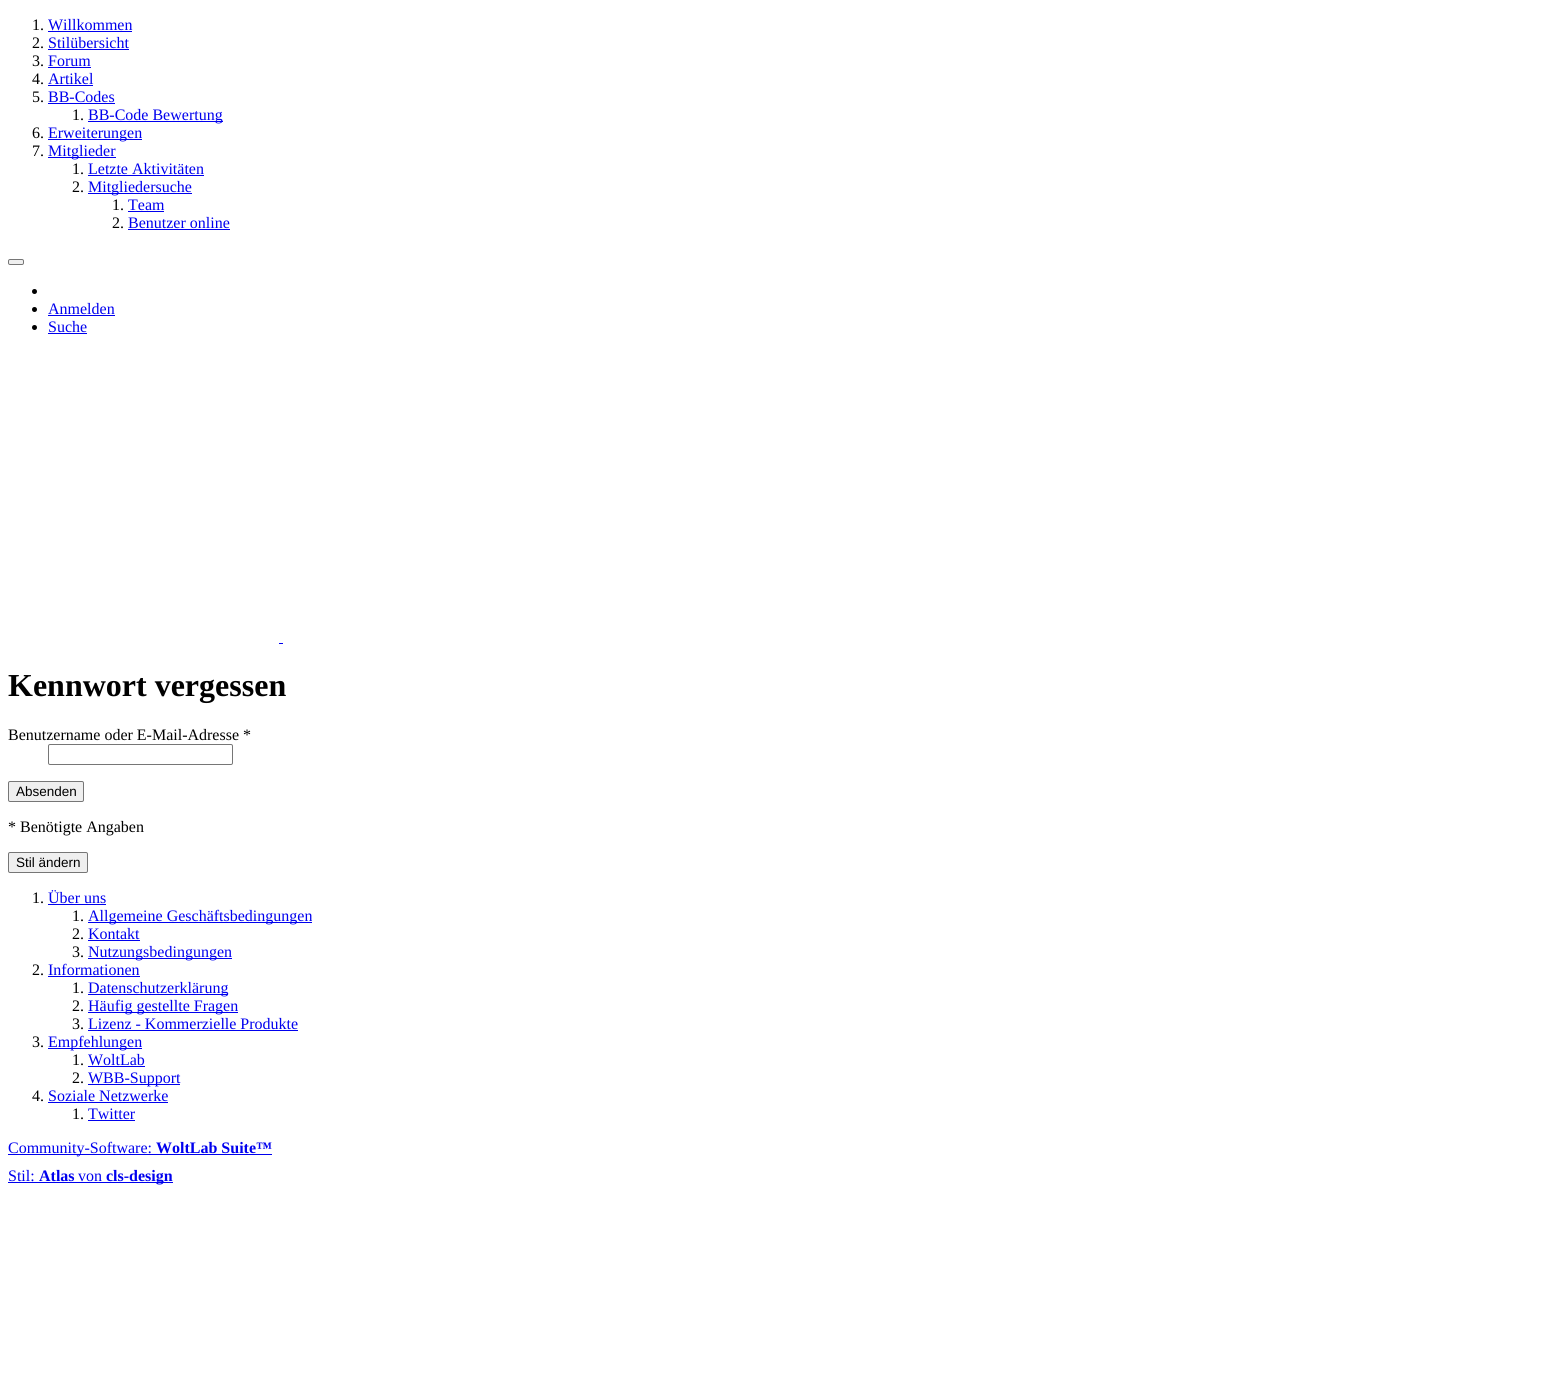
#include <cairo/cairo.h>
#include <math.h>
#include <stddef.h>


static void rounded_rect(cairo_t *cr, double x, double y, double w, double h, double r) {
  cairo_new_sub_path(cr);
  cairo_arc(cr, x + w - r, y + h - r, r, 0, M_PI / 2);
  cairo_arc(cr, x + r, y + h - r, r, M_PI / 2, M_PI);
  cairo_arc(cr, x + r, y + r, r, M_PI, 1.5 * M_PI);
  cairo_arc(cr, x + w - r, y + r, r, 1.5 * M_PI, 2 * M_PI);
  cairo_close_path(cr);
}

static void draw(cairo_t *cr) {
  cairo_set_source_rgb(cr, 1, 1, 1);
  cairo_paint(cr);
  cairo_set_source_rgb(cr, 0, 0, 238 / 255.0);
  cairo_rectangle(cr, 48, 31, 84, 1);
  cairo_fill(cr);
  cairo_rectangle(cr, 48, 49, 81, 1);
  cairo_fill(cr);
  cairo_rectangle(cr, 48, 67, 43, 1);
  cairo_fill(cr);
  cairo_rectangle(cr, 48, 85, 45, 1);
  cairo_fill(cr);
  cairo_rectangle(cr, 48, 103, 67, 1);
  cairo_fill(cr);
  cairo_rectangle(cr, 88, 121, 135, 1);
  cairo_fill(cr);
  cairo_rectangle(cr, 48, 139, 94, 1);
  cairo_fill(cr);
  cairo_rectangle(cr, 48, 157, 68, 1);
  cairo_fill(cr);
  cairo_rectangle(cr, 88, 175, 116, 1);
  cairo_fill(cr);
  cairo_rectangle(cr, 88, 193, 104, 1);
  cairo_fill(cr);
  cairo_rectangle(cr, 128, 211, 36, 1);
  cairo_fill(cr);
  cairo_rectangle(cr, 128, 229, 102, 1);
  cairo_fill(cr);
  cairo_set_source_rgb(cr, 239 / 255.0, 239 / 255.0, 239 / 255.0);
  rounded_rect(cr, 8.5, 259.5, 15, 5, 1.5);
  cairo_fill_preserve(cr);
  cairo_set_source_rgb(cr, 118 / 255.0, 118 / 255.0, 118 / 255.0);
  cairo_set_line_width(cr, 1);
  cairo_stroke(cr);
  cairo_set_source_rgb(cr, 0, 0, 0);
  cairo_arc(cr, 34.5, 291.5, 2.5, 0, 2 * M_PI);
  cairo_fill(cr);
  cairo_arc(cr, 34.5, 309.5, 2.5, 0, 2 * M_PI);
  cairo_fill(cr);
  cairo_set_source_rgb(cr, 0, 0, 238 / 255.0);
  cairo_rectangle(cr, 48, 315, 67, 1);
  cairo_fill(cr);
  cairo_set_source_rgb(cr, 0, 0, 0);
  cairo_arc(cr, 34.5, 327.5, 2.5, 0, 2 * M_PI);
  cairo_fill(cr);
  cairo_set_source_rgb(cr, 0, 0, 238 / 255.0);
  cairo_rectangle(cr, 48, 333, 39, 1);
  cairo_fill(cr);
  cairo_rectangle(cr, 279, 643, 4, 1);
  cairo_fill(cr);
  rounded_rect(cr, 48.5, 744.5, 184, 20, 1.5);
  cairo_set_source_rgb(cr, 118 / 255.0, 118 / 255.0, 118 / 255.0);
  cairo_stroke(cr);
  cairo_set_source_rgb(cr, 239 / 255.0, 239 / 255.0, 239 / 255.0);
  rounded_rect(cr, 8.5, 781.5, 75, 20, 1.5);
  cairo_fill_preserve(cr);
  cairo_set_source_rgb(cr, 118 / 255.0, 118 / 255.0, 118 / 255.0);
  cairo_stroke(cr);
  cairo_set_source_rgb(cr, 239 / 255.0, 239 / 255.0, 239 / 255.0);
  rounded_rect(cr, 8.5, 852.5, 79, 20, 1.5);
  cairo_fill_preserve(cr);
  cairo_set_source_rgb(cr, 118 / 255.0, 118 / 255.0, 118 / 255.0);
  cairo_stroke(cr);
  cairo_set_source_rgb(cr, 0, 0, 238 / 255.0);
  cairo_rectangle(cr, 48, 904, 58, 1);
  cairo_fill(cr);
  cairo_rectangle(cr, 88, 922, 224, 1);
  cairo_fill(cr);
  cairo_rectangle(cr, 88, 940, 52, 1);
  cairo_fill(cr);
  cairo_rectangle(cr, 88, 958, 144, 1);
  cairo_fill(cr);
  cairo_rectangle(cr, 48, 976, 92, 1);
  cairo_fill(cr);
  cairo_rectangle(cr, 88, 994, 140, 1);
  cairo_fill(cr);
  cairo_rectangle(cr, 88, 1012, 150, 1);
  cairo_fill(cr);
  cairo_rectangle(cr, 88, 1030, 210, 1);
  cairo_fill(cr);
  cairo_rectangle(cr, 48, 1048, 94, 1);
  cairo_fill(cr);
  cairo_rectangle(cr, 88, 1066, 57, 1);
  cairo_fill(cr);
  cairo_rectangle(cr, 88, 1084, 92, 1);
  cairo_fill(cr);
  cairo_rectangle(cr, 48, 1102, 120, 1);
  cairo_fill(cr);
  cairo_rectangle(cr, 88, 1120, 47, 1);
  cairo_fill(cr);
  cairo_rectangle(cr, 8, 1154, 264, 1);
  cairo_fill(cr);
  cairo_rectangle(cr, 8, 1182, 165, 1);
  cairo_fill(cr);
  cairo_select_font_face(cr, "Liberation Serif", CAIRO_FONT_SLANT_NORMAL, CAIRO_FONT_WEIGHT_NORMAL);
  cairo_set_font_size(cr, 16);
  cairo_set_source_rgb(cr, 0, 0, 0);
  cairo_move_to(cr, 32, 30);
  cairo_show_text(cr, "1.");
  cairo_set_source_rgb(cr, 0, 0, 238 / 255.0);
  cairo_move_to(cr, 48, 30);
  cairo_show_text(cr, "Willkommen");
  cairo_set_source_rgb(cr, 0, 0, 0);
  cairo_move_to(cr, 32, 48);
  cairo_show_text(cr, "2.");
  cairo_set_source_rgb(cr, 0, 0, 238 / 255.0);
  cairo_move_to(cr, 48, 48);
  cairo_show_text(cr, "Stilübersicht");
  cairo_set_source_rgb(cr, 0, 0, 0);
  cairo_move_to(cr, 32, 66);
  cairo_show_text(cr, "3.");
  cairo_set_source_rgb(cr, 0, 0, 238 / 255.0);
  cairo_move_to(cr, 48, 66);
  cairo_show_text(cr, "Forum");
  cairo_set_source_rgb(cr, 0, 0, 0);
  cairo_move_to(cr, 32, 84);
  cairo_show_text(cr, "4.");
  cairo_set_source_rgb(cr, 0, 0, 238 / 255.0);
  cairo_move_to(cr, 48, 84);
  cairo_show_text(cr, "Artikel");
  cairo_set_source_rgb(cr, 0, 0, 0);
  cairo_move_to(cr, 32, 102);
  cairo_show_text(cr, "5.");
  cairo_set_source_rgb(cr, 0, 0, 238 / 255.0);
  cairo_move_to(cr, 48, 102);
  cairo_show_text(cr, "BB-Codes");
  cairo_set_source_rgb(cr, 0, 0, 0);
  cairo_move_to(cr, 72, 120);
  cairo_show_text(cr, "1.");
  cairo_set_source_rgb(cr, 0, 0, 238 / 255.0);
  cairo_move_to(cr, 88, 120);
  cairo_show_text(cr, "BB-Code Bewertung");
  cairo_set_source_rgb(cr, 0, 0, 0);
  cairo_move_to(cr, 32, 138);
  cairo_show_text(cr, "6.");
  cairo_set_source_rgb(cr, 0, 0, 238 / 255.0);
  cairo_move_to(cr, 48, 138);
  cairo_show_text(cr, "Erweiterungen");
  cairo_set_source_rgb(cr, 0, 0, 0);
  cairo_move_to(cr, 32, 156);
  cairo_show_text(cr, "7.");
  cairo_set_source_rgb(cr, 0, 0, 238 / 255.0);
  cairo_move_to(cr, 48, 156);
  cairo_show_text(cr, "Mitglieder");
  cairo_set_source_rgb(cr, 0, 0, 0);
  cairo_move_to(cr, 72, 174);
  cairo_show_text(cr, "1.");
  cairo_set_source_rgb(cr, 0, 0, 238 / 255.0);
  cairo_move_to(cr, 88, 174);
  cairo_show_text(cr, "Letzte Aktivitäten");
  cairo_set_source_rgb(cr, 0, 0, 0);
  cairo_move_to(cr, 72, 192);
  cairo_show_text(cr, "2.");
  cairo_set_source_rgb(cr, 0, 0, 238 / 255.0);
  cairo_move_to(cr, 88, 192);
  cairo_show_text(cr, "Mitgliedersuche");
  cairo_set_source_rgb(cr, 0, 0, 0);
  cairo_move_to(cr, 112, 210);
  cairo_show_text(cr, "1.");
  cairo_set_source_rgb(cr, 0, 0, 238 / 255.0);
  cairo_move_to(cr, 128, 210);
  cairo_show_text(cr, "Team");
  cairo_set_source_rgb(cr, 0, 0, 0);
  cairo_move_to(cr, 112, 228);
  cairo_show_text(cr, "2.");
  cairo_set_source_rgb(cr, 0, 0, 238 / 255.0);
  cairo_move_to(cr, 128, 228);
  cairo_show_text(cr, "Benutzer online");
  cairo_move_to(cr, 48, 314);
  cairo_show_text(cr, "Anmelden");
  cairo_move_to(cr, 48, 332);
  cairo_show_text(cr, "Suche");
  cairo_select_font_face(cr, "Liberation Serif", CAIRO_FONT_SLANT_NORMAL, CAIRO_FONT_WEIGHT_BOLD);
  cairo_set_font_size(cr, 32);
  cairo_set_source_rgb(cr, 0, 0, 0);
  cairo_move_to(cr, 8, 696);
  cairo_show_text(cr, "Kennwort vergessen");
  cairo_select_font_face(cr, "Liberation Serif", CAIRO_FONT_SLANT_NORMAL, CAIRO_FONT_WEIGHT_NORMAL);
  cairo_set_font_size(cr, 16);
  cairo_move_to(cr, 8, 740);
  cairo_show_text(cr, "Benutzername oder E-Mail-Adresse *");
  cairo_select_font_face(cr, "Liberation Sans", CAIRO_FONT_SLANT_NORMAL, CAIRO_FONT_WEIGHT_NORMAL);
  cairo_set_font_size(cr, 13.5);
  cairo_move_to(cr, 16, 796);
  cairo_show_text(cr, "Absenden");
  cairo_select_font_face(cr, "Liberation Serif", CAIRO_FONT_SLANT_NORMAL, CAIRO_FONT_WEIGHT_NORMAL);
  cairo_set_font_size(cr, 16);
  cairo_move_to(cr, 8, 832);
  cairo_show_text(cr, "* Benötigte Angaben");
  cairo_select_font_face(cr, "Liberation Sans", CAIRO_FONT_SLANT_NORMAL, CAIRO_FONT_WEIGHT_NORMAL);
  cairo_set_font_size(cr, 13.5);
  cairo_move_to(cr, 16, 867);
  cairo_show_text(cr, "Stil ändern");
  cairo_select_font_face(cr, "Liberation Serif", CAIRO_FONT_SLANT_NORMAL, CAIRO_FONT_WEIGHT_NORMAL);
  cairo_set_font_size(cr, 16);
  cairo_move_to(cr, 32, 903);
  cairo_show_text(cr, "1.");
  cairo_set_source_rgb(cr, 0, 0, 238 / 255.0);
  cairo_move_to(cr, 48, 903);
  cairo_show_text(cr, "Über uns");
  cairo_set_source_rgb(cr, 0, 0, 0);
  cairo_move_to(cr, 72, 921);
  cairo_show_text(cr, "1.");
  cairo_set_source_rgb(cr, 0, 0, 238 / 255.0);
  cairo_move_to(cr, 88, 921);
  cairo_show_text(cr, "Allgemeine Geschäftsbedingungen");
  cairo_set_source_rgb(cr, 0, 0, 0);
  cairo_move_to(cr, 72, 939);
  cairo_show_text(cr, "2.");
  cairo_set_source_rgb(cr, 0, 0, 238 / 255.0);
  cairo_move_to(cr, 88, 939);
  cairo_show_text(cr, "Kontakt");
  cairo_set_source_rgb(cr, 0, 0, 0);
  cairo_move_to(cr, 72, 957);
  cairo_show_text(cr, "3.");
  cairo_set_source_rgb(cr, 0, 0, 238 / 255.0);
  cairo_move_to(cr, 88, 957);
  cairo_show_text(cr, "Nutzungsbedingungen");
  cairo_set_source_rgb(cr, 0, 0, 0);
  cairo_move_to(cr, 32, 975);
  cairo_show_text(cr, "2.");
  cairo_set_source_rgb(cr, 0, 0, 238 / 255.0);
  cairo_move_to(cr, 48, 975);
  cairo_show_text(cr, "Informationen");
  cairo_set_source_rgb(cr, 0, 0, 0);
  cairo_move_to(cr, 72, 993);
  cairo_show_text(cr, "1.");
  cairo_set_source_rgb(cr, 0, 0, 238 / 255.0);
  cairo_move_to(cr, 88, 993);
  cairo_show_text(cr, "Datenschutzerklärung");
  cairo_set_source_rgb(cr, 0, 0, 0);
  cairo_move_to(cr, 72, 1011);
  cairo_show_text(cr, "2.");
  cairo_set_source_rgb(cr, 0, 0, 238 / 255.0);
  cairo_move_to(cr, 88, 1011);
  cairo_show_text(cr, "Häufig gestellte Fragen");
  cairo_set_source_rgb(cr, 0, 0, 0);
  cairo_move_to(cr, 72, 1029);
  cairo_show_text(cr, "3.");
  cairo_set_source_rgb(cr, 0, 0, 238 / 255.0);
  cairo_move_to(cr, 88, 1029);
  cairo_show_text(cr, "Lizenz - Kommerzielle Produkte");
  cairo_set_source_rgb(cr, 0, 0, 0);
  cairo_move_to(cr, 32, 1047);
  cairo_show_text(cr, "3.");
  cairo_set_source_rgb(cr, 0, 0, 238 / 255.0);
  cairo_move_to(cr, 48, 1047);
  cairo_show_text(cr, "Empfehlungen");
  cairo_set_source_rgb(cr, 0, 0, 0);
  cairo_move_to(cr, 72, 1065);
  cairo_show_text(cr, "1.");
  cairo_set_source_rgb(cr, 0, 0, 238 / 255.0);
  cairo_move_to(cr, 88, 1065);
  cairo_show_text(cr, "WoltLab");
  cairo_set_source_rgb(cr, 0, 0, 0);
  cairo_move_to(cr, 72, 1083);
  cairo_show_text(cr, "2.");
  cairo_set_source_rgb(cr, 0, 0, 238 / 255.0);
  cairo_move_to(cr, 88, 1083);
  cairo_show_text(cr, "WBB-Support");
  cairo_set_source_rgb(cr, 0, 0, 0);
  cairo_move_to(cr, 32, 1101);
  cairo_show_text(cr, "4.");
  cairo_set_source_rgb(cr, 0, 0, 238 / 255.0);
  cairo_move_to(cr, 48, 1101);
  cairo_show_text(cr, "Soziale Netzwerke");
  cairo_set_source_rgb(cr, 0, 0, 0);
  cairo_move_to(cr, 72, 1119);
  cairo_show_text(cr, "1.");
  cairo_set_source_rgb(cr, 0, 0, 238 / 255.0);
  cairo_move_to(cr, 88, 1119);
  cairo_show_text(cr, "Twitter");
  cairo_move_to(cr, 8, 1153);
  cairo_show_text(cr, "Community-Software:");
  cairo_select_font_face(cr, "Liberation Serif", CAIRO_FONT_SLANT_NORMAL, CAIRO_FONT_WEIGHT_BOLD);
  cairo_move_to(cr, 156, 1153);
  cairo_show_text(cr, "WoltLab Suite™");
  cairo_select_font_face(cr, "Liberation Serif", CAIRO_FONT_SLANT_NORMAL, CAIRO_FONT_WEIGHT_NORMAL);
  cairo_move_to(cr, 8, 1181);
  cairo_show_text(cr, "Stil:");
  cairo_select_font_face(cr, "Liberation Serif", CAIRO_FONT_SLANT_NORMAL, CAIRO_FONT_WEIGHT_BOLD);
  cairo_move_to(cr, 39, 1181);
  cairo_show_text(cr, "Atlas");
  cairo_select_font_face(cr, "Liberation Serif", CAIRO_FONT_SLANT_NORMAL, CAIRO_FONT_WEIGHT_NORMAL);
  cairo_move_to(cr, 78, 1181);
  cairo_show_text(cr, "von");
  cairo_select_font_face(cr, "Liberation Serif", CAIRO_FONT_SLANT_NORMAL, CAIRO_FONT_WEIGHT_BOLD);
  cairo_move_to(cr, 106, 1181);
  cairo_show_text(cr, "cls-design");
}

int main(void) {
  cairo_surface_t *surface = cairo_image_surface_create(CAIRO_FORMAT_RGB24, 1555, 1399);
  cairo_t *cr = cairo_create(surface);
  cairo_font_options_t *options = cairo_font_options_create();
  cairo_font_options_set_hint_metrics(options, CAIRO_HINT_METRICS_OFF);
  cairo_font_options_set_hint_style(options, CAIRO_HINT_STYLE_NONE);
  cairo_set_font_options(cr, options);
  cairo_set_miter_limit(cr, 4);
  draw(cr);
  cairo_surface_write_to_png(surface, "out.png");
  cairo_font_options_destroy(options);
  cairo_destroy(cr);
  cairo_surface_destroy(surface);
  return 0;
}
